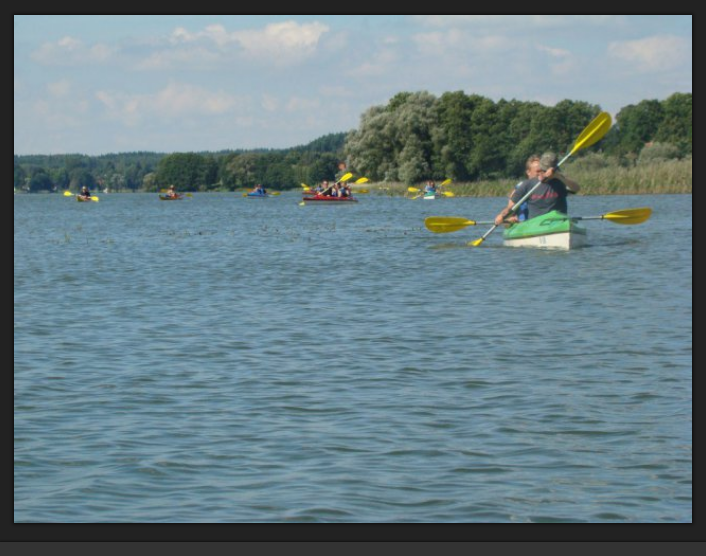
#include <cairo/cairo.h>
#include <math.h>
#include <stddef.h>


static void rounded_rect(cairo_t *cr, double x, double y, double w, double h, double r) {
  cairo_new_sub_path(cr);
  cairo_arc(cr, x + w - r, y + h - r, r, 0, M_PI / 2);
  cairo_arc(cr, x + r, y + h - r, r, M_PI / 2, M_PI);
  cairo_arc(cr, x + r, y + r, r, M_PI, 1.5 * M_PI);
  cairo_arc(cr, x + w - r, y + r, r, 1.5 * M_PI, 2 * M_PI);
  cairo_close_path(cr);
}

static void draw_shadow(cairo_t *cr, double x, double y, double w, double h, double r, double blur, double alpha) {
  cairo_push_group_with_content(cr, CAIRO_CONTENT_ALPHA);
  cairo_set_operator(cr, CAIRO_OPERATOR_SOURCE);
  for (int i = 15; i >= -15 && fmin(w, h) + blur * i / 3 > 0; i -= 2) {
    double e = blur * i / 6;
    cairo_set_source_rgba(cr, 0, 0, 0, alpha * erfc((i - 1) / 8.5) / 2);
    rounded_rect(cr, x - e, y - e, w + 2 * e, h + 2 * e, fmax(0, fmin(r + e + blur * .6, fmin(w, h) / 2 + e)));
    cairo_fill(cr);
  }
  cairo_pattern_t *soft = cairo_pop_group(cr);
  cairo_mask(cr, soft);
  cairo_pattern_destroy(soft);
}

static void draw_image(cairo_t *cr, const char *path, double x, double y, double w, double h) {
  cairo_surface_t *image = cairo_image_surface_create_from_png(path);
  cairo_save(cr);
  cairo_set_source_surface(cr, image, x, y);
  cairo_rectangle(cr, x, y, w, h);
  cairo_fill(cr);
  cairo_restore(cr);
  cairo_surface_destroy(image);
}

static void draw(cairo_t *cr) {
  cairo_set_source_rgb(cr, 34 / 255.0, 34 / 255.0, 34 / 255.0);
  cairo_paint(cr);
  cairo_set_source_rgb(cr, 0, 0, 0);
  draw_shadow(cr, 14, 15, 678, 508, 0, 2.5, 1);
  draw_image(cr, "images/1.png", 14, 15, 678, 508);
  draw_shadow(cr, 0, 542, 706, 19, 0, 1.5, 1);
  cairo_set_source_rgb(cr, 51 / 255.0, 51 / 255.0, 51 / 255.0);
  cairo_rectangle(cr, 0, 542, 706, 14);
  cairo_fill(cr);
}

int main(void) {
  cairo_surface_t *surface = cairo_image_surface_create(CAIRO_FORMAT_RGB24, 706, 556);
  cairo_t *cr = cairo_create(surface);
  cairo_font_options_t *options = cairo_font_options_create();
  cairo_font_options_set_hint_metrics(options, CAIRO_HINT_METRICS_OFF);
  cairo_font_options_set_hint_style(options, CAIRO_HINT_STYLE_NONE);
  cairo_set_font_options(cr, options);
  cairo_set_miter_limit(cr, 4);
  draw(cr);
  cairo_surface_write_to_png(surface, "out.png");
  cairo_font_options_destroy(options);
  cairo_destroy(cr);
  cairo_surface_destroy(surface);
  return 0;
}
